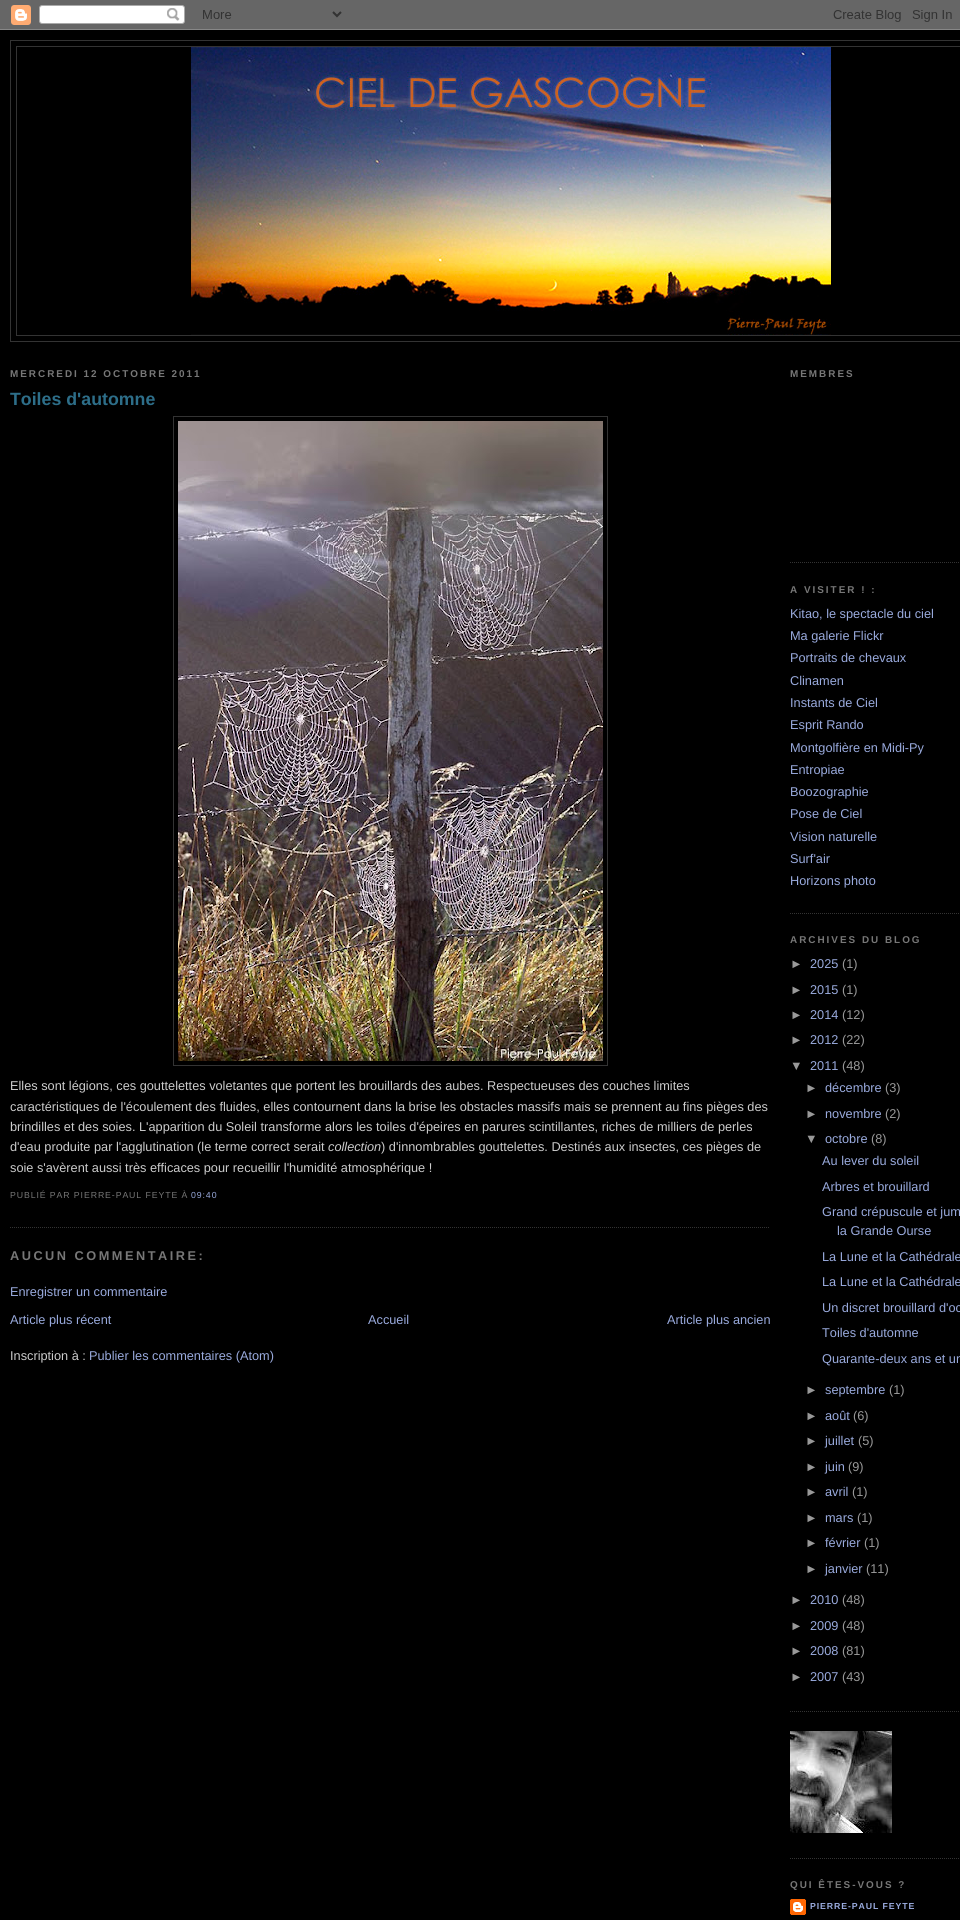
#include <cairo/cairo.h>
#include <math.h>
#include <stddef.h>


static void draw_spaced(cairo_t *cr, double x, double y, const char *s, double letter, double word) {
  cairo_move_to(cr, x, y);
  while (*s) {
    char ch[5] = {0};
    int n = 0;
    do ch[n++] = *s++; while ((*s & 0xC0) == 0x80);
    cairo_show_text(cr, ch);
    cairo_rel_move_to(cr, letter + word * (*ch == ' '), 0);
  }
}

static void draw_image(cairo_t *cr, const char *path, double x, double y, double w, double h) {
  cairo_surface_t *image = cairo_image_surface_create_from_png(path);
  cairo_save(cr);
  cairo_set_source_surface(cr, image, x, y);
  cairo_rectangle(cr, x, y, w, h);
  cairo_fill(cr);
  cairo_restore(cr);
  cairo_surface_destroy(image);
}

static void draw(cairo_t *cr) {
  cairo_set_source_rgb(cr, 0, 0, 0);
  cairo_paint(cr);
  draw_image(cr, "images/1.png", 0, 0, 960, 30);
  cairo_rectangle(cr, 10.5, 40.5, 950, 301);
  cairo_set_source_rgb(cr, 51 / 255.0, 51 / 255.0, 51 / 255.0);
  cairo_set_line_width(cr, 1);
  cairo_stroke(cr);
  cairo_rectangle(cr, 16.5, 46.5, 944, 289);
  cairo_stroke(cr);
  draw_image(cr, "images/2.png", 191, 47, 640, 288);
  cairo_new_path(cr);
  cairo_move_to(cr, 10, 1227.5);
  cairo_line_to(cr, 770, 1227.5);
  cairo_set_dash(cr, (double[]){1, 1}, 2, 0);
  cairo_stroke(cr);
  cairo_rectangle(cr, 173.5, 416.5, 434, 649);
  cairo_set_dash(cr, NULL, 0, 0);
  cairo_stroke(cr);
  draw_image(cr, "images/3.png", 178, 421, 425, 640);
  cairo_new_path(cr);
  cairo_move_to(cr, 790, 562.5);
  cairo_line_to(cr, 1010, 562.5);
  cairo_set_dash(cr, (double[]){1, 1}, 2, 0);
  cairo_stroke(cr);
  cairo_new_path(cr);
  cairo_move_to(cr, 790, 913.5);
  cairo_line_to(cr, 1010, 913.5);
  cairo_stroke(cr);
  cairo_new_path(cr);
  cairo_move_to(cr, 790, 1711.5);
  cairo_line_to(cr, 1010, 1711.5);
  cairo_stroke(cr);
  cairo_new_path(cr);
  cairo_move_to(cr, 790, 1858.5);
  cairo_line_to(cr, 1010, 1858.5);
  cairo_stroke(cr);
  draw_image(cr, "images/4.png", 790, 1731, 102, 102);
  draw_image(cr, "images/5.png", 790, 1899, 16, 16);
  cairo_select_font_face(cr, "Liberation Sans", CAIRO_FONT_SLANT_NORMAL, CAIRO_FONT_WEIGHT_BOLD);
  cairo_set_font_size(cr, 9.9);
  cairo_set_source_rgb(cr, 119 / 255.0, 119 / 255.0, 119 / 255.0);
  draw_spaced(cr, 10, 377, "MERCREDI 12 OCTOBRE 2011", 2, 0);
  cairo_set_font_size(cr, 17.75);
  cairo_set_source_rgb(cr, 45 / 255.0, 110 / 255.0, 137 / 255.0);
  cairo_move_to(cr, 10, 405);
  cairo_show_text(cr, "Toiles d'automne");
  cairo_select_font_face(cr, "Liberation Sans", CAIRO_FONT_SLANT_NORMAL, CAIRO_FONT_WEIGHT_NORMAL);
  cairo_set_font_size(cr, 12.75);
  cairo_set_source_rgb(cr, 204 / 255.0, 204 / 255.0, 204 / 255.0);
  cairo_move_to(cr, 10, 1090);
  cairo_show_text(cr, "Elles sont légions, ces gouttelettes voletantes que portent les brouillards des aubes. Respectueuses des couches limites");
  cairo_move_to(cr, 10, 1111);
  cairo_show_text(cr, "caractéristiques de l'écoulement des fluides, elles contournent dans la brise les obstacles massifs mais se prennent au fins pièges des");
  cairo_move_to(cr, 10, 1131);
  cairo_show_text(cr, "brindilles et des soies. L'apparition du Soleil transforme alors les toiles d'épeires en parures scintillantes, riches de milliers de perles");
  cairo_move_to(cr, 10, 1151);
  cairo_show_text(cr, "d'eau produite par l'agglutination (le terme correct serait");
  cairo_select_font_face(cr, "Liberation Sans", CAIRO_FONT_SLANT_ITALIC, CAIRO_FONT_WEIGHT_NORMAL);
  cairo_move_to(cr, 328, 1151);
  cairo_show_text(cr, "collection");
  cairo_select_font_face(cr, "Liberation Sans", CAIRO_FONT_SLANT_NORMAL, CAIRO_FONT_WEIGHT_NORMAL);
  cairo_move_to(cr, 381, 1151);
  cairo_show_text(cr, ") d'innombrables gouttelettes. Destinés aux insectes, ces pièges de");
  cairo_move_to(cr, 10, 1172);
  cairo_show_text(cr, "soie s'avèrent aussi très efficaces pour recueillir l'humidité atmosphérique !");
  cairo_set_font_size(cr, 8.75);
  cairo_set_source_rgb(cr, 119 / 255.0, 119 / 255.0, 119 / 255.0);
  draw_spaced(cr, 10, 1198, "PUBLIÉ PAR PIERRE-PAUL FEYTE À", 0.9, 0);
  cairo_set_source_rgb(cr, 153 / 255.0, 170 / 255.0, 221 / 255.0);
  draw_spaced(cr, 191, 1198, "09:40", 0.9, 0);
  cairo_select_font_face(cr, "Liberation Sans", CAIRO_FONT_SLANT_NORMAL, CAIRO_FONT_WEIGHT_BOLD);
  cairo_set_font_size(cr, 12.75);
  cairo_set_source_rgb(cr, 119 / 255.0, 119 / 255.0, 119 / 255.0);
  draw_spaced(cr, 10, 1260, "AUCUN COMMENTAIRE:", 2.5, 0);
  cairo_select_font_face(cr, "Liberation Sans", CAIRO_FONT_SLANT_NORMAL, CAIRO_FONT_WEIGHT_NORMAL);
  cairo_set_source_rgb(cr, 153 / 255.0, 170 / 255.0, 221 / 255.0);
  cairo_move_to(cr, 10, 1296);
  cairo_show_text(cr, "Enregistrer un commentaire");
  cairo_move_to(cr, 10, 1324);
  cairo_show_text(cr, "Article plus récent");
  cairo_move_to(cr, 368, 1324);
  cairo_show_text(cr, "Accueil");
  cairo_move_to(cr, 667, 1324);
  cairo_show_text(cr, "Article plus ancien");
  cairo_set_source_rgb(cr, 204 / 255.0, 204 / 255.0, 204 / 255.0);
  cairo_move_to(cr, 10, 1360);
  cairo_show_text(cr, "Inscription à :");
  cairo_set_source_rgb(cr, 153 / 255.0, 170 / 255.0, 221 / 255.0);
  cairo_move_to(cr, 89, 1360);
  cairo_show_text(cr, "Publier les commentaires (Atom)");
  cairo_select_font_face(cr, "Liberation Sans", CAIRO_FONT_SLANT_NORMAL, CAIRO_FONT_WEIGHT_BOLD);
  cairo_set_font_size(cr, 9.9);
  cairo_set_source_rgb(cr, 119 / 255.0, 119 / 255.0, 119 / 255.0);
  draw_spaced(cr, 790, 377, "MEMBRES", 2, 0);
  draw_spaced(cr, 790, 593, "A VISITER ! :", 2, 0);
  cairo_select_font_face(cr, "Liberation Sans", CAIRO_FONT_SLANT_NORMAL, CAIRO_FONT_WEIGHT_NORMAL);
  cairo_set_font_size(cr, 12.75);
  cairo_set_source_rgb(cr, 153 / 255.0, 170 / 255.0, 221 / 255.0);
  cairo_move_to(cr, 790, 618);
  cairo_show_text(cr, "Kitao, le spectacle du ciel");
  cairo_move_to(cr, 790, 640);
  cairo_show_text(cr, "Ma galerie Flickr");
  cairo_move_to(cr, 790, 662);
  cairo_show_text(cr, "Portraits de chevaux");
  cairo_move_to(cr, 790, 685);
  cairo_show_text(cr, "Clinamen");
  cairo_move_to(cr, 790, 707);
  cairo_show_text(cr, "Instants de Ciel");
  cairo_move_to(cr, 790, 729);
  cairo_show_text(cr, "Esprit Rando");
  cairo_move_to(cr, 790, 752);
  cairo_show_text(cr, "Montgolfière en Midi-Py");
  cairo_move_to(cr, 790, 774);
  cairo_show_text(cr, "Entropiae");
  cairo_move_to(cr, 790, 796);
  cairo_show_text(cr, "Boozographie");
  cairo_move_to(cr, 790, 818);
  cairo_show_text(cr, "Pose de Ciel");
  cairo_move_to(cr, 790, 841);
  cairo_show_text(cr, "Vision naturelle");
  cairo_move_to(cr, 790, 863);
  cairo_show_text(cr, "Surf'air");
  cairo_move_to(cr, 790, 885);
  cairo_show_text(cr, "Horizons photo");
  cairo_select_font_face(cr, "Liberation Sans", CAIRO_FONT_SLANT_NORMAL, CAIRO_FONT_WEIGHT_BOLD);
  cairo_set_font_size(cr, 9.9);
  cairo_set_source_rgb(cr, 119 / 255.0, 119 / 255.0, 119 / 255.0);
  draw_spaced(cr, 790, 943, "ARCHIVES DU BLOG", 2, 0);
  cairo_select_font_face(cr, "Liberation Sans", CAIRO_FONT_SLANT_NORMAL, CAIRO_FONT_WEIGHT_NORMAL);
  cairo_set_font_size(cr, 12.75);
  cairo_set_source_rgb(cr, 153 / 255.0, 153 / 255.0, 153 / 255.0);
  cairo_move_to(cr, 790, 968);
  cairo_show_text(cr, "►");
  cairo_set_source_rgb(cr, 153 / 255.0, 170 / 255.0, 221 / 255.0);
  cairo_move_to(cr, 810, 968);
  cairo_show_text(cr, "2025");
  cairo_set_source_rgb(cr, 153 / 255.0, 153 / 255.0, 153 / 255.0);
  cairo_move_to(cr, 842, 968);
  cairo_show_text(cr, "(1)");
  cairo_move_to(cr, 790, 994);
  cairo_show_text(cr, "►");
  cairo_set_source_rgb(cr, 153 / 255.0, 170 / 255.0, 221 / 255.0);
  cairo_move_to(cr, 810, 994);
  cairo_show_text(cr, "2015");
  cairo_set_source_rgb(cr, 153 / 255.0, 153 / 255.0, 153 / 255.0);
  cairo_move_to(cr, 842, 994);
  cairo_show_text(cr, "(1)");
  cairo_move_to(cr, 790, 1019);
  cairo_show_text(cr, "►");
  cairo_set_source_rgb(cr, 153 / 255.0, 170 / 255.0, 221 / 255.0);
  cairo_move_to(cr, 810, 1019);
  cairo_show_text(cr, "2014");
  cairo_set_source_rgb(cr, 153 / 255.0, 153 / 255.0, 153 / 255.0);
  cairo_move_to(cr, 842, 1019);
  cairo_show_text(cr, "(12)");
  cairo_move_to(cr, 790, 1044);
  cairo_show_text(cr, "►");
  cairo_set_source_rgb(cr, 153 / 255.0, 170 / 255.0, 221 / 255.0);
  cairo_move_to(cr, 810, 1044);
  cairo_show_text(cr, "2012");
  cairo_set_source_rgb(cr, 153 / 255.0, 153 / 255.0, 153 / 255.0);
  cairo_move_to(cr, 842, 1044);
  cairo_show_text(cr, "(22)");
  cairo_move_to(cr, 790, 1070);
  cairo_show_text(cr, "▼");
  cairo_set_source_rgb(cr, 153 / 255.0, 170 / 255.0, 221 / 255.0);
  cairo_move_to(cr, 810, 1070);
  cairo_show_text(cr, "2011");
  cairo_set_source_rgb(cr, 153 / 255.0, 153 / 255.0, 153 / 255.0);
  cairo_move_to(cr, 842, 1070);
  cairo_show_text(cr, "(48)");
  cairo_move_to(cr, 805, 1092);
  cairo_show_text(cr, "►");
  cairo_set_source_rgb(cr, 153 / 255.0, 170 / 255.0, 221 / 255.0);
  cairo_move_to(cr, 825, 1092);
  cairo_show_text(cr, "décembre");
  cairo_set_source_rgb(cr, 153 / 255.0, 153 / 255.0, 153 / 255.0);
  cairo_move_to(cr, 885, 1092);
  cairo_show_text(cr, "(3)");
  cairo_move_to(cr, 805, 1118);
  cairo_show_text(cr, "►");
  cairo_set_source_rgb(cr, 153 / 255.0, 170 / 255.0, 221 / 255.0);
  cairo_move_to(cr, 825, 1118);
  cairo_show_text(cr, "novembre");
  cairo_set_source_rgb(cr, 153 / 255.0, 153 / 255.0, 153 / 255.0);
  cairo_move_to(cr, 885, 1118);
  cairo_show_text(cr, "(2)");
  cairo_move_to(cr, 805, 1143);
  cairo_show_text(cr, "▼");
  cairo_set_source_rgb(cr, 153 / 255.0, 170 / 255.0, 221 / 255.0);
  cairo_move_to(cr, 825, 1143);
  cairo_show_text(cr, "octobre");
  cairo_set_source_rgb(cr, 153 / 255.0, 153 / 255.0, 153 / 255.0);
  cairo_move_to(cr, 871, 1143);
  cairo_show_text(cr, "(8)");
  cairo_set_source_rgb(cr, 153 / 255.0, 170 / 255.0, 221 / 255.0);
  cairo_move_to(cr, 822, 1165);
  cairo_show_text(cr, "Au lever du soleil");
  cairo_move_to(cr, 822, 1191);
  cairo_show_text(cr, "Arbres et brouillard");
  cairo_move_to(cr, 822, 1216);
  cairo_show_text(cr, "Grand crépuscule et jum");
  cairo_move_to(cr, 837, 1235);
  cairo_show_text(cr, "la Grande Ourse");
  cairo_move_to(cr, 822, 1261);
  cairo_show_text(cr, "La Lune et la Cathédrale");
  cairo_move_to(cr, 822, 1286);
  cairo_show_text(cr, "La Lune et la Cathédrale");
  cairo_move_to(cr, 822, 1312);
  cairo_show_text(cr, "Un discret brouillard d'oc");
  cairo_move_to(cr, 822, 1337);
  cairo_show_text(cr, "Toiles d'automne");
  cairo_move_to(cr, 822, 1363);
  cairo_show_text(cr, "Quarante-deux ans et un");
  cairo_set_source_rgb(cr, 153 / 255.0, 153 / 255.0, 153 / 255.0);
  cairo_move_to(cr, 805, 1394);
  cairo_show_text(cr, "►");
  cairo_set_source_rgb(cr, 153 / 255.0, 170 / 255.0, 221 / 255.0);
  cairo_move_to(cr, 825, 1394);
  cairo_show_text(cr, "septembre");
  cairo_set_source_rgb(cr, 153 / 255.0, 153 / 255.0, 153 / 255.0);
  cairo_move_to(cr, 889, 1394);
  cairo_show_text(cr, "(1)");
  cairo_move_to(cr, 805, 1420);
  cairo_show_text(cr, "►");
  cairo_set_source_rgb(cr, 153 / 255.0, 170 / 255.0, 221 / 255.0);
  cairo_move_to(cr, 825, 1420);
  cairo_show_text(cr, "août");
  cairo_set_source_rgb(cr, 153 / 255.0, 153 / 255.0, 153 / 255.0);
  cairo_move_to(cr, 853, 1420);
  cairo_show_text(cr, "(6)");
  cairo_move_to(cr, 805, 1445);
  cairo_show_text(cr, "►");
  cairo_set_source_rgb(cr, 153 / 255.0, 170 / 255.0, 221 / 255.0);
  cairo_move_to(cr, 825, 1445);
  cairo_show_text(cr, "juillet");
  cairo_set_source_rgb(cr, 153 / 255.0, 153 / 255.0, 153 / 255.0);
  cairo_move_to(cr, 858, 1445);
  cairo_show_text(cr, "(5)");
  cairo_move_to(cr, 805, 1471);
  cairo_show_text(cr, "►");
  cairo_set_source_rgb(cr, 153 / 255.0, 170 / 255.0, 221 / 255.0);
  cairo_move_to(cr, 825, 1471);
  cairo_show_text(cr, "juin");
  cairo_set_source_rgb(cr, 153 / 255.0, 153 / 255.0, 153 / 255.0);
  cairo_move_to(cr, 848, 1471);
  cairo_show_text(cr, "(9)");
  cairo_move_to(cr, 805, 1496);
  cairo_show_text(cr, "►");
  cairo_set_source_rgb(cr, 153 / 255.0, 170 / 255.0, 221 / 255.0);
  cairo_move_to(cr, 825, 1496);
  cairo_show_text(cr, "avril");
  cairo_set_source_rgb(cr, 153 / 255.0, 153 / 255.0, 153 / 255.0);
  cairo_move_to(cr, 852, 1496);
  cairo_show_text(cr, "(1)");
  cairo_move_to(cr, 805, 1522);
  cairo_show_text(cr, "►");
  cairo_set_source_rgb(cr, 153 / 255.0, 170 / 255.0, 221 / 255.0);
  cairo_move_to(cr, 825, 1522);
  cairo_show_text(cr, "mars");
  cairo_set_source_rgb(cr, 153 / 255.0, 153 / 255.0, 153 / 255.0);
  cairo_move_to(cr, 857, 1522);
  cairo_show_text(cr, "(1)");
  cairo_move_to(cr, 805, 1547);
  cairo_show_text(cr, "►");
  cairo_set_source_rgb(cr, 153 / 255.0, 170 / 255.0, 221 / 255.0);
  cairo_move_to(cr, 825, 1547);
  cairo_show_text(cr, "février");
  cairo_set_source_rgb(cr, 153 / 255.0, 153 / 255.0, 153 / 255.0);
  cairo_move_to(cr, 864, 1547);
  cairo_show_text(cr, "(1)");
  cairo_move_to(cr, 805, 1573);
  cairo_show_text(cr, "►");
  cairo_set_source_rgb(cr, 153 / 255.0, 170 / 255.0, 221 / 255.0);
  cairo_move_to(cr, 825, 1573);
  cairo_show_text(cr, "janvier");
  cairo_set_source_rgb(cr, 153 / 255.0, 153 / 255.0, 153 / 255.0);
  cairo_move_to(cr, 866, 1573);
  cairo_show_text(cr, "(11)");
  cairo_move_to(cr, 790, 1604);
  cairo_show_text(cr, "►");
  cairo_set_source_rgb(cr, 153 / 255.0, 170 / 255.0, 221 / 255.0);
  cairo_move_to(cr, 810, 1604);
  cairo_show_text(cr, "2010");
  cairo_set_source_rgb(cr, 153 / 255.0, 153 / 255.0, 153 / 255.0);
  cairo_move_to(cr, 842, 1604);
  cairo_show_text(cr, "(48)");
  cairo_move_to(cr, 790, 1630);
  cairo_show_text(cr, "►");
  cairo_set_source_rgb(cr, 153 / 255.0, 170 / 255.0, 221 / 255.0);
  cairo_move_to(cr, 810, 1630);
  cairo_show_text(cr, "2009");
  cairo_set_source_rgb(cr, 153 / 255.0, 153 / 255.0, 153 / 255.0);
  cairo_move_to(cr, 842, 1630);
  cairo_show_text(cr, "(48)");
  cairo_move_to(cr, 790, 1655);
  cairo_show_text(cr, "►");
  cairo_set_source_rgb(cr, 153 / 255.0, 170 / 255.0, 221 / 255.0);
  cairo_move_to(cr, 810, 1655);
  cairo_show_text(cr, "2008");
  cairo_set_source_rgb(cr, 153 / 255.0, 153 / 255.0, 153 / 255.0);
  cairo_move_to(cr, 842, 1655);
  cairo_show_text(cr, "(81)");
  cairo_move_to(cr, 790, 1681);
  cairo_show_text(cr, "►");
  cairo_set_source_rgb(cr, 153 / 255.0, 170 / 255.0, 221 / 255.0);
  cairo_move_to(cr, 810, 1681);
  cairo_show_text(cr, "2007");
  cairo_set_source_rgb(cr, 153 / 255.0, 153 / 255.0, 153 / 255.0);
  cairo_move_to(cr, 842, 1681);
  cairo_show_text(cr, "(43)");
  cairo_select_font_face(cr, "Liberation Sans", CAIRO_FONT_SLANT_NORMAL, CAIRO_FONT_WEIGHT_BOLD);
  cairo_set_font_size(cr, 9.9);
  cairo_set_source_rgb(cr, 119 / 255.0, 119 / 255.0, 119 / 255.0);
  draw_spaced(cr, 790, 1888, "QUI ÊTES-VOUS ?", 2, 0);
  cairo_set_font_size(cr, 8.75);
  cairo_set_source_rgb(cr, 153 / 255.0, 170 / 255.0, 221 / 255.0);
  draw_spaced(cr, 810, 1909, "PIERRE-PAUL FEYTE", 0.9, 0);
}

int main(void) {
  cairo_surface_t *surface = cairo_image_surface_create(CAIRO_FORMAT_RGB24, 960, 1920);
  cairo_t *cr = cairo_create(surface);
  cairo_font_options_t *options = cairo_font_options_create();
  cairo_font_options_set_hint_metrics(options, CAIRO_HINT_METRICS_OFF);
  cairo_font_options_set_hint_style(options, CAIRO_HINT_STYLE_NONE);
  cairo_set_font_options(cr, options);
  cairo_set_miter_limit(cr, 4);
  draw(cr);
  cairo_surface_write_to_png(surface, "out.png");
  cairo_font_options_destroy(options);
  cairo_destroy(cr);
  cairo_surface_destroy(surface);
  return 0;
}
